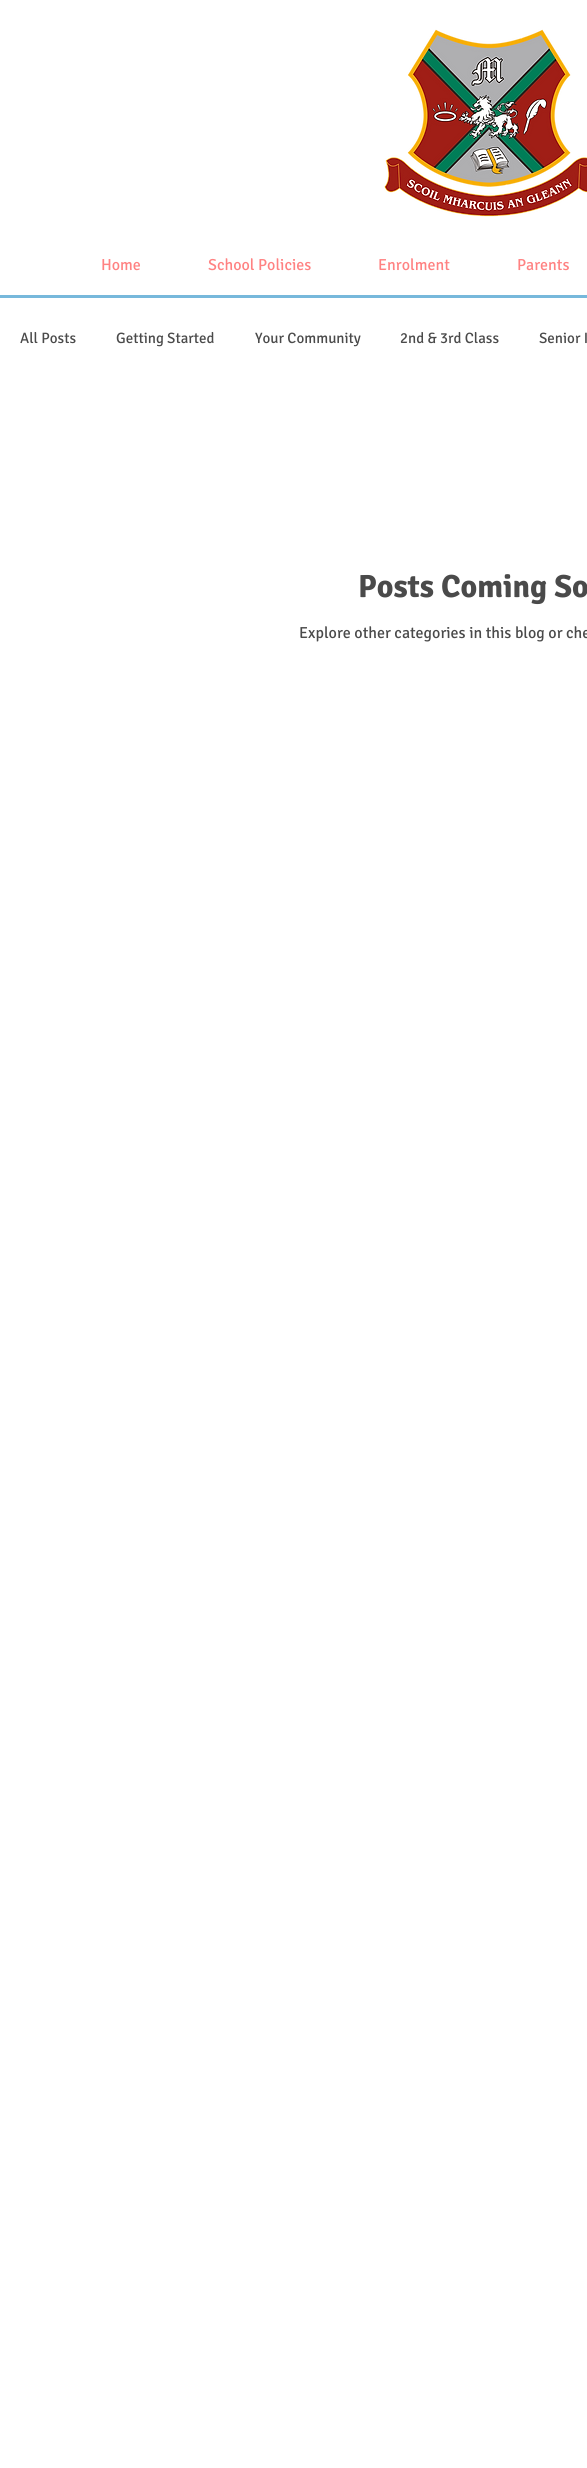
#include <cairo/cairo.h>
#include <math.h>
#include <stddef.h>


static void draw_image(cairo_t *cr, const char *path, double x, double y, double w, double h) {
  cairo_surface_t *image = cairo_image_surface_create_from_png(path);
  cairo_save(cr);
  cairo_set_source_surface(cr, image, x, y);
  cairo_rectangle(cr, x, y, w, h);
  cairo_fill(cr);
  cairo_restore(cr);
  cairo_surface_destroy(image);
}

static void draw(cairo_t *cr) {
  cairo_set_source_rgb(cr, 1, 1, 1);
  cairo_paint(cr);
  draw_image(cr, "images/1.png", 384, 29, 203, 188);
  cairo_set_source_rgb(cr, 119 / 255.0, 184 / 255.0, 219 / 255.0);
  cairo_rectangle(cr, 0, 295, 587, 3);
  cairo_fill(cr);
  cairo_select_font_face(cr, "Signika", CAIRO_FONT_SLANT_NORMAL, CAIRO_FONT_WEIGHT_NORMAL);
  cairo_set_font_size(cr, 16);
  cairo_set_source_rgb(cr, 1, 130 / 255.0, 130 / 255.0);
  cairo_move_to(cr, 101, 270);
  cairo_show_text(cr, "Home");
  cairo_move_to(cr, 208, 270);
  cairo_show_text(cr, "School Policies");
  cairo_move_to(cr, 378, 270);
  cairo_show_text(cr, "Enrolment");
  cairo_move_to(cr, 517, 270);
  cairo_show_text(cr, "Parents");
  cairo_set_font_size(cr, 15);
  cairo_set_source_rgb(cr, 74 / 255.0, 74 / 255.0, 74 / 255.0);
  cairo_move_to(cr, 20, 343);
  cairo_show_text(cr, "All Posts");
  cairo_move_to(cr, 116, 343);
  cairo_show_text(cr, "Getting Started");
  cairo_move_to(cr, 255, 343);
  cairo_show_text(cr, "Your Community");
  cairo_move_to(cr, 400, 343);
  cairo_show_text(cr, "2nd & 3rd Class");
  cairo_move_to(cr, 539, 343);
  cairo_show_text(cr, "Senior I");
  cairo_select_font_face(cr, "Signika", CAIRO_FONT_SLANT_NORMAL, CAIRO_FONT_WEIGHT_BOLD);
  cairo_set_font_size(cr, 32);
  cairo_move_to(cr, 358, 597);
  cairo_show_text(cr, "Posts Coming So");
  cairo_select_font_face(cr, "Signika", CAIRO_FONT_SLANT_NORMAL, CAIRO_FONT_WEIGHT_NORMAL);
  cairo_set_font_size(cr, 16);
  cairo_move_to(cr, 299, 638);
  cairo_show_text(cr, "Explore other categories in this blog or che");
}

int main(void) {
  cairo_surface_t *surface = cairo_image_surface_create(CAIRO_FORMAT_RGB24, 587, 2468);
  cairo_t *cr = cairo_create(surface);
  cairo_font_options_t *options = cairo_font_options_create();
  cairo_font_options_set_hint_metrics(options, CAIRO_HINT_METRICS_OFF);
  cairo_font_options_set_hint_style(options, CAIRO_HINT_STYLE_NONE);
  cairo_set_font_options(cr, options);
  cairo_set_miter_limit(cr, 4);
  draw(cr);
  cairo_surface_write_to_png(surface, "out.png");
  cairo_font_options_destroy(options);
  cairo_destroy(cr);
  cairo_surface_destroy(surface);
  return 0;
}
